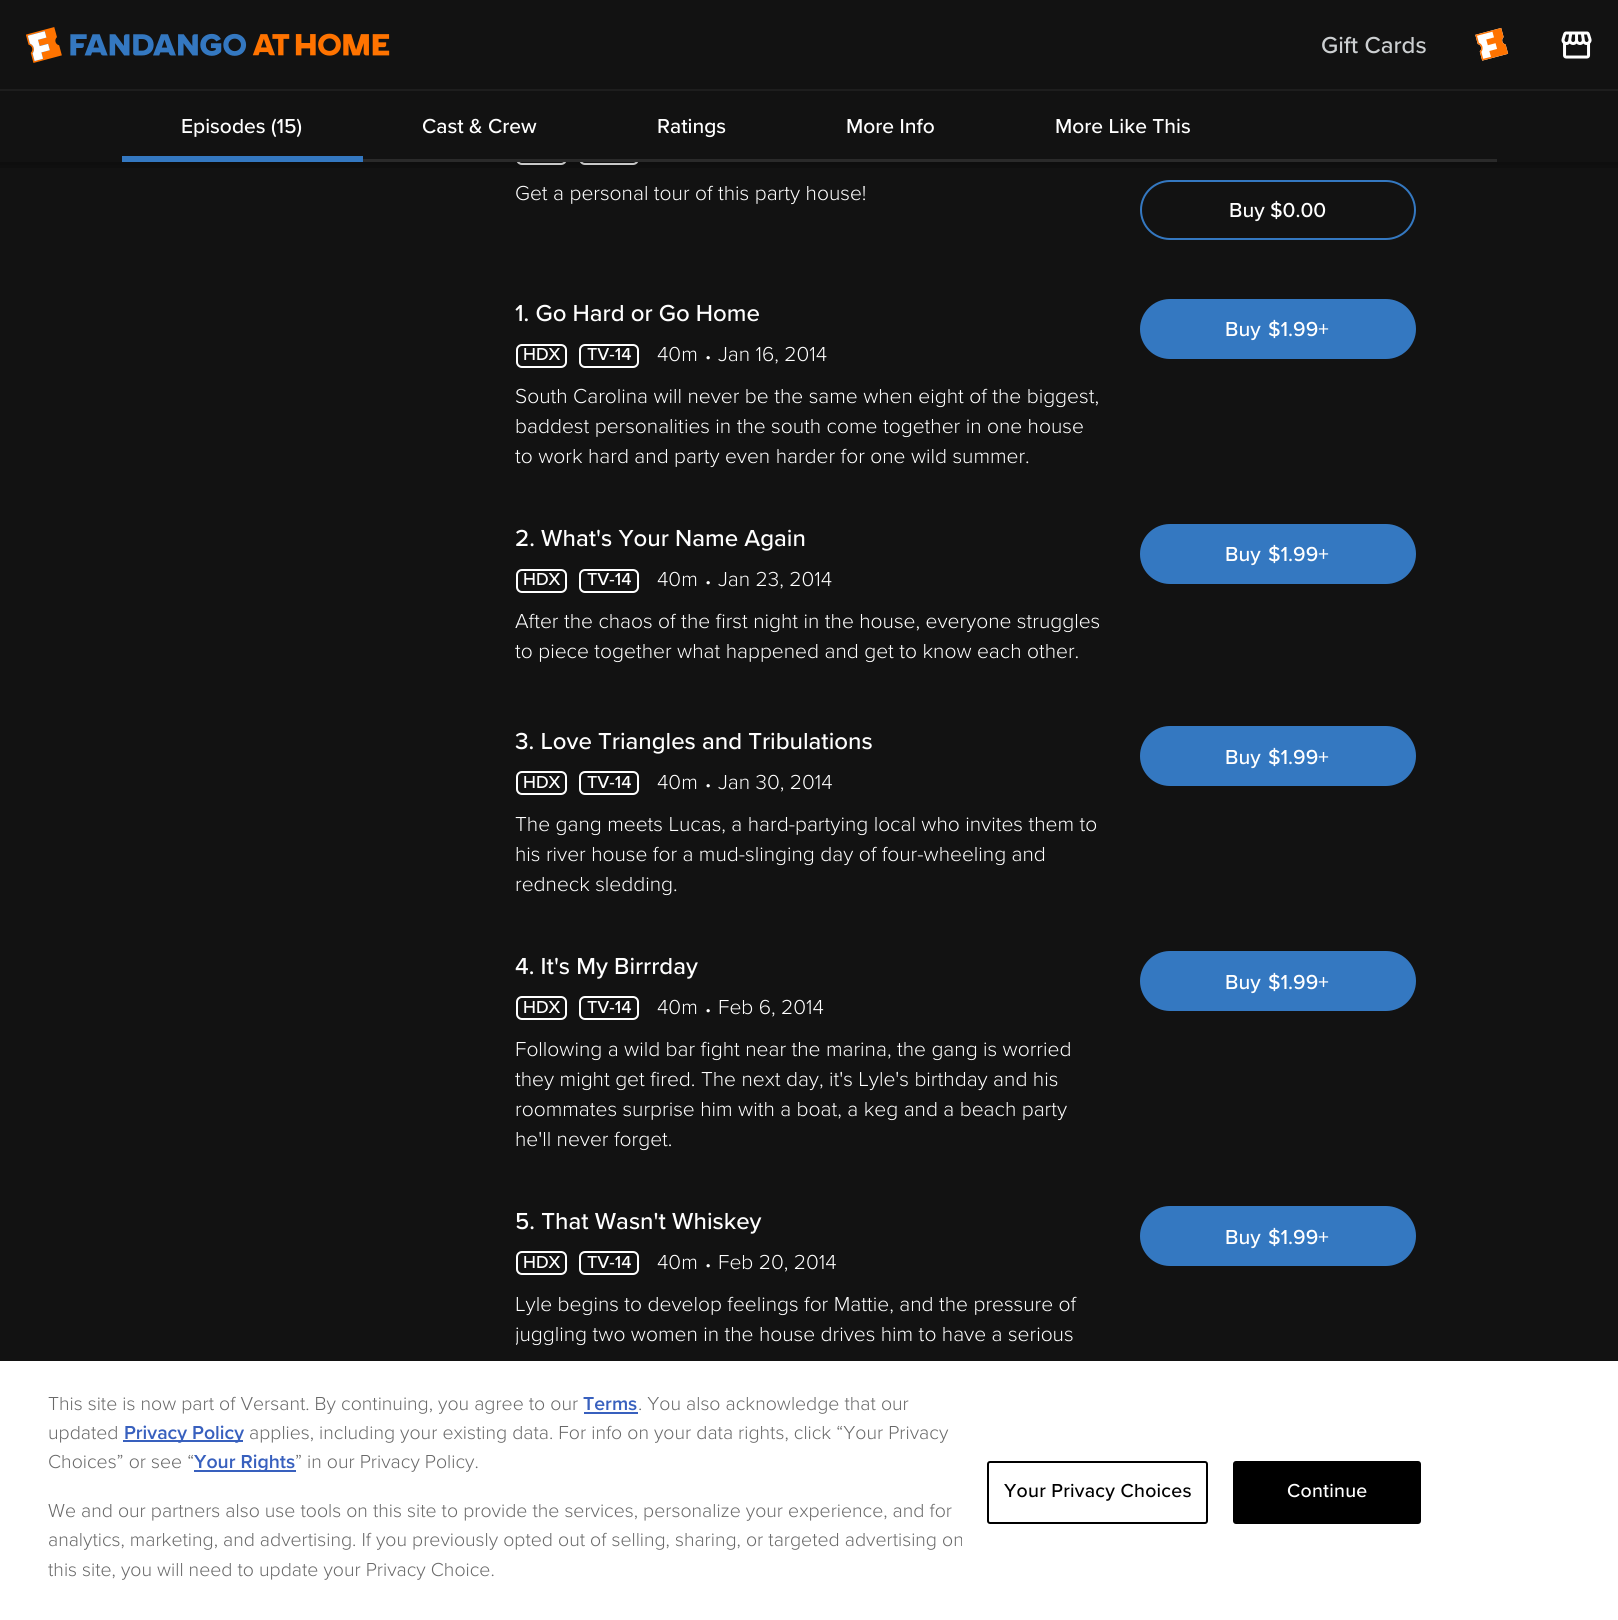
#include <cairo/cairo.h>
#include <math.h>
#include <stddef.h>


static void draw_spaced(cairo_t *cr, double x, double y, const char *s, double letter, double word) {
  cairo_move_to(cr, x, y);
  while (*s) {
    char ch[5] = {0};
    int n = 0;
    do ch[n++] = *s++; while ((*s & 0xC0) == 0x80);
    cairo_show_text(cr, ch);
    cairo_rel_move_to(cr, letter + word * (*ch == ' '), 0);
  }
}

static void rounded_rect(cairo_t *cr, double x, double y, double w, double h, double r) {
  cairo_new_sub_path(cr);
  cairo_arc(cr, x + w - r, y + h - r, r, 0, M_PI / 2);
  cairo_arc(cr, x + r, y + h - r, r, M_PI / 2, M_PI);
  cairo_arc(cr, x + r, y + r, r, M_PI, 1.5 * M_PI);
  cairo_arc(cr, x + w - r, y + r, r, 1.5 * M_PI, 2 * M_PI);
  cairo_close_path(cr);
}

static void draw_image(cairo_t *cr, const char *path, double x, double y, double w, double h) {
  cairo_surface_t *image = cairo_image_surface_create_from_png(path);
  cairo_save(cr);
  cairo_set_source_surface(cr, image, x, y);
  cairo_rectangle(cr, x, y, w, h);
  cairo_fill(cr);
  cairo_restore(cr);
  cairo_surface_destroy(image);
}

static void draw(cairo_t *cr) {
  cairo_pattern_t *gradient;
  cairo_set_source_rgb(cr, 18 / 255.0, 18 / 255.0, 18 / 255.0);
  cairo_paint(cr);
  cairo_set_source_rgb(cr, 30 / 255.0, 30 / 255.0, 30 / 255.0);
  cairo_rectangle(cr, 0, 89, 1618, 2);
  cairo_fill(cr);
  draw_image(cr, "images/1.png", 26, 27, 364, 36);
  draw_image(cr, "images/2.png", 1475, 27, 34, 34);
  draw_image(cr, "images/3.png", 1561, 31, 31, 28);
  rounded_rect(cr, 517, 142, 49, 22, 5);
  cairo_set_source_rgb(cr, 1, 1, 1);
  cairo_stroke(cr);
  rounded_rect(cr, 580, 142, 58, 22, 5);
  cairo_stroke(cr);
  cairo_set_source_rgb(cr, 18 / 255.0, 18 / 255.0, 18 / 255.0);
  cairo_rectangle(cr, 516, 141, 123, 21);
  cairo_fill(cr);
  cairo_set_source_rgb(cr, 52 / 255.0, 120 / 255.0, 193 / 255.0);
  cairo_rectangle(cr, 122, 156, 241, 6);
  cairo_fill(cr);
  cairo_set_source_rgb(cr, 42 / 255.0, 42 / 255.0, 42 / 255.0);
  cairo_rectangle(cr, 363, 159, 1134, 3);
  cairo_fill(cr);
  gradient = cairo_pattern_create_linear(809, 177, 809, 162);
  cairo_pattern_add_color_stop_rgba(gradient, 0, 0, 0, 0, 0);
  cairo_pattern_add_color_stop_rgba(gradient, 1, 0, 0, 0, 0.25);
  cairo_set_source(cr, gradient);
  cairo_pattern_destroy(gradient);
  cairo_rectangle(cr, 0, 162, 1618, 6);
  cairo_fill(cr);
  rounded_rect(cr, 1141, 181, 274, 58, 29);
  cairo_set_source_rgb(cr, 52 / 255.0, 120 / 255.0, 193 / 255.0);
  cairo_stroke(cr);
  rounded_rect(cr, 517, 345, 49, 22, 5);
  cairo_set_source_rgb(cr, 1, 1, 1);
  cairo_stroke(cr);
  rounded_rect(cr, 580, 345, 58, 22, 5);
  cairo_stroke(cr);
  cairo_set_source_rgb(cr, 52 / 255.0, 120 / 255.0, 193 / 255.0);
  rounded_rect(cr, 1140, 299, 276, 60, 30);
  cairo_fill(cr);
  rounded_rect(cr, 517, 570, 49, 22, 5);
  cairo_set_source_rgb(cr, 1, 1, 1);
  cairo_stroke(cr);
  rounded_rect(cr, 580, 570, 58, 22, 5);
  cairo_stroke(cr);
  cairo_set_source_rgb(cr, 52 / 255.0, 120 / 255.0, 193 / 255.0);
  rounded_rect(cr, 1140, 524, 276, 60, 30);
  cairo_fill(cr);
  rounded_rect(cr, 517, 772, 49, 22, 5);
  cairo_set_source_rgb(cr, 1, 1, 1);
  cairo_stroke(cr);
  rounded_rect(cr, 580, 772, 58, 22, 5);
  cairo_stroke(cr);
  cairo_set_source_rgb(cr, 52 / 255.0, 120 / 255.0, 193 / 255.0);
  rounded_rect(cr, 1140, 726, 276, 60, 30);
  cairo_fill(cr);
  rounded_rect(cr, 517, 997, 49, 22, 5);
  cairo_set_source_rgb(cr, 1, 1, 1);
  cairo_stroke(cr);
  rounded_rect(cr, 580, 997, 58, 22, 5);
  cairo_stroke(cr);
  cairo_set_source_rgb(cr, 52 / 255.0, 120 / 255.0, 193 / 255.0);
  rounded_rect(cr, 1140, 951, 276, 60, 30);
  cairo_fill(cr);
  rounded_rect(cr, 517, 1252, 49, 22, 5);
  cairo_set_source_rgb(cr, 1, 1, 1);
  cairo_stroke(cr);
  rounded_rect(cr, 580, 1252, 58, 22, 5);
  cairo_stroke(cr);
  cairo_set_source_rgb(cr, 52 / 255.0, 120 / 255.0, 193 / 255.0);
  rounded_rect(cr, 1140, 1206, 276, 60, 30);
  cairo_fill(cr);
  cairo_set_source_rgb(cr, 1, 1, 1);
  cairo_rectangle(cr, 0, 1361, 1618, 259);
  cairo_fill(cr);
  cairo_set_source_rgb(cr, 56 / 255.0, 96 / 255.0, 190 / 255.0);
  cairo_rectangle(cr, 584, 1412, 54, 2);
  cairo_fill(cr);
  cairo_rectangle(cr, 123, 1440, 120, 2);
  cairo_fill(cr);
  cairo_rectangle(cr, 194, 1470, 102, 2);
  cairo_fill(cr);
  rounded_rect(cr, 988, 1462, 219, 61, 2);
  cairo_set_source_rgb(cr, 0, 0, 0);
  cairo_stroke(cr);
  rounded_rect(cr, 1234, 1462, 186, 61, 2);
  cairo_fill_preserve(cr);
  cairo_stroke(cr);
  cairo_select_font_face(cr, "Proxima Nova Medium", CAIRO_FONT_SLANT_NORMAL, CAIRO_FONT_WEIGHT_NORMAL);
  cairo_set_font_size(cr, 24);
  cairo_set_source_rgb(cr, 204 / 255.0, 207 / 255.0, 209 / 255.0);
  cairo_move_to(cr, 1321, 53);
  cairo_show_text(cr, "Gift Cards");
  cairo_set_font_size(cr, 21);
  cairo_set_source_rgb(cr, 1, 1, 1);
  cairo_move_to(cr, 181, 133);
  cairo_show_text(cr, "Episodes (15)");
  cairo_move_to(cr, 422, 133);
  cairo_show_text(cr, "Cast & Crew");
  cairo_move_to(cr, 657, 133);
  cairo_show_text(cr, "Ratings");
  cairo_move_to(cr, 846, 133);
  cairo_show_text(cr, "More Info");
  cairo_move_to(cr, 1055, 133);
  cairo_show_text(cr, "More Like This");
  cairo_select_font_face(cr, "Proxima Nova Light", CAIRO_FONT_SLANT_NORMAL, CAIRO_FONT_WEIGHT_NORMAL);
  cairo_move_to(cr, 515, 200);
  cairo_show_text(cr, "Get a personal tour of this party house!");
  cairo_select_font_face(cr, "Proxima Nova Medium", CAIRO_FONT_SLANT_NORMAL, CAIRO_FONT_WEIGHT_NORMAL);
  cairo_move_to(cr, 1229, 217);
  cairo_show_text(cr, "Buy $0.00");
  cairo_set_font_size(cr, 24);
  cairo_move_to(cr, 515, 321);
  cairo_show_text(cr, "1. Go Hard or Go Home");
  cairo_set_font_size(cr, 18);
  cairo_move_to(cr, 523, 360);
  cairo_show_text(cr, "HDX");
  cairo_move_to(cr, 587, 360);
  cairo_show_text(cr, "TV-14");
  cairo_select_font_face(cr, "Proxima Nova Light", CAIRO_FONT_SLANT_NORMAL, CAIRO_FONT_WEIGHT_NORMAL);
  cairo_set_font_size(cr, 21);
  cairo_move_to(cr, 657, 361);
  cairo_show_text(cr, "40m");
  cairo_set_font_size(cr, 38);
  cairo_move_to(cr, 704, 367);
  cairo_show_text(cr, "·");
  cairo_set_font_size(cr, 21);
  cairo_move_to(cr, 718, 361);
  cairo_show_text(cr, "Jan 16, 2014");
  cairo_move_to(cr, 515, 403);
  cairo_show_text(cr, "South Carolina will never be the same when eight of the biggest,");
  cairo_move_to(cr, 515, 433);
  cairo_show_text(cr, "baddest personalities in the south come together in one house");
  cairo_move_to(cr, 515, 463);
  cairo_show_text(cr, "to work hard and party even harder for one wild summer.");
  cairo_select_font_face(cr, "Proxima Nova Medium", CAIRO_FONT_SLANT_NORMAL, CAIRO_FONT_WEIGHT_NORMAL);
  cairo_move_to(cr, 1225, 336);
  cairo_show_text(cr, "Buy");
  cairo_move_to(cr, 1268, 336);
  cairo_show_text(cr, "$1.99+");
  cairo_set_font_size(cr, 24);
  cairo_move_to(cr, 515, 546);
  cairo_show_text(cr, "2. What's Your Name Again");
  cairo_set_font_size(cr, 18);
  cairo_move_to(cr, 523, 585);
  cairo_show_text(cr, "HDX");
  cairo_move_to(cr, 587, 585);
  cairo_show_text(cr, "TV-14");
  cairo_select_font_face(cr, "Proxima Nova Light", CAIRO_FONT_SLANT_NORMAL, CAIRO_FONT_WEIGHT_NORMAL);
  cairo_set_font_size(cr, 21);
  cairo_move_to(cr, 657, 586);
  cairo_show_text(cr, "40m");
  cairo_set_font_size(cr, 38);
  cairo_move_to(cr, 704, 592);
  cairo_show_text(cr, "·");
  cairo_set_font_size(cr, 21);
  cairo_move_to(cr, 718, 586);
  cairo_show_text(cr, "Jan 23, 2014");
  cairo_move_to(cr, 515, 628);
  cairo_show_text(cr, "After the chaos of the first night in the house, everyone struggles");
  cairo_move_to(cr, 515, 658);
  cairo_show_text(cr, "to piece together what happened and get to know each other.");
  cairo_select_font_face(cr, "Proxima Nova Medium", CAIRO_FONT_SLANT_NORMAL, CAIRO_FONT_WEIGHT_NORMAL);
  cairo_move_to(cr, 1225, 561);
  cairo_show_text(cr, "Buy");
  cairo_move_to(cr, 1268, 561);
  cairo_show_text(cr, "$1.99+");
  cairo_set_font_size(cr, 24);
  cairo_move_to(cr, 515, 749);
  cairo_show_text(cr, "3. Love Triangles and Tribulations");
  cairo_set_font_size(cr, 18);
  cairo_move_to(cr, 523, 788);
  cairo_show_text(cr, "HDX");
  cairo_move_to(cr, 587, 788);
  cairo_show_text(cr, "TV-14");
  cairo_select_font_face(cr, "Proxima Nova Light", CAIRO_FONT_SLANT_NORMAL, CAIRO_FONT_WEIGHT_NORMAL);
  cairo_set_font_size(cr, 21);
  cairo_move_to(cr, 657, 789);
  cairo_show_text(cr, "40m");
  cairo_set_font_size(cr, 38);
  cairo_move_to(cr, 704, 795);
  cairo_show_text(cr, "·");
  cairo_set_font_size(cr, 21);
  cairo_move_to(cr, 718, 789);
  cairo_show_text(cr, "Jan 30, 2014");
  cairo_move_to(cr, 515, 831);
  cairo_show_text(cr, "The gang meets Lucas, a hard-partying local who invites them to");
  cairo_move_to(cr, 515, 861);
  cairo_show_text(cr, "his river house for a mud-slinging day of four-wheeling and");
  cairo_move_to(cr, 515, 891);
  cairo_show_text(cr, "redneck sledding.");
  cairo_select_font_face(cr, "Proxima Nova Medium", CAIRO_FONT_SLANT_NORMAL, CAIRO_FONT_WEIGHT_NORMAL);
  cairo_move_to(cr, 1225, 764);
  cairo_show_text(cr, "Buy");
  cairo_move_to(cr, 1268, 764);
  cairo_show_text(cr, "$1.99+");
  cairo_set_font_size(cr, 24);
  cairo_move_to(cr, 515, 974);
  cairo_show_text(cr, "4. It's My Birrrday");
  cairo_set_font_size(cr, 18);
  cairo_move_to(cr, 523, 1013);
  cairo_show_text(cr, "HDX");
  cairo_move_to(cr, 587, 1013);
  cairo_show_text(cr, "TV-14");
  cairo_select_font_face(cr, "Proxima Nova Light", CAIRO_FONT_SLANT_NORMAL, CAIRO_FONT_WEIGHT_NORMAL);
  cairo_set_font_size(cr, 21);
  cairo_move_to(cr, 657, 1014);
  cairo_show_text(cr, "40m");
  cairo_set_font_size(cr, 38);
  cairo_move_to(cr, 704, 1020);
  cairo_show_text(cr, "·");
  cairo_set_font_size(cr, 21);
  cairo_move_to(cr, 718, 1014);
  cairo_show_text(cr, "Feb 6, 2014");
  cairo_move_to(cr, 515, 1056);
  cairo_show_text(cr, "Following a wild bar fight near the marina, the gang is worried");
  cairo_move_to(cr, 515, 1086);
  cairo_show_text(cr, "they might get fired. The next day, it's Lyle's birthday and his");
  cairo_move_to(cr, 515, 1116);
  cairo_show_text(cr, "roommates surprise him with a boat, a keg and a beach party");
  cairo_move_to(cr, 515, 1146);
  cairo_show_text(cr, "he'll never forget.");
  cairo_select_font_face(cr, "Proxima Nova Medium", CAIRO_FONT_SLANT_NORMAL, CAIRO_FONT_WEIGHT_NORMAL);
  cairo_move_to(cr, 1225, 989);
  cairo_show_text(cr, "Buy");
  cairo_move_to(cr, 1268, 989);
  cairo_show_text(cr, "$1.99+");
  cairo_set_font_size(cr, 24);
  cairo_move_to(cr, 515, 1229);
  cairo_show_text(cr, "5. That Wasn't Whiskey");
  cairo_set_font_size(cr, 18);
  cairo_move_to(cr, 523, 1268);
  cairo_show_text(cr, "HDX");
  cairo_move_to(cr, 587, 1268);
  cairo_show_text(cr, "TV-14");
  cairo_select_font_face(cr, "Proxima Nova Light", CAIRO_FONT_SLANT_NORMAL, CAIRO_FONT_WEIGHT_NORMAL);
  cairo_set_font_size(cr, 21);
  cairo_move_to(cr, 657, 1269);
  cairo_show_text(cr, "40m");
  cairo_set_font_size(cr, 38);
  cairo_move_to(cr, 704, 1275);
  cairo_show_text(cr, "·");
  cairo_set_font_size(cr, 21);
  cairo_move_to(cr, 718, 1269);
  cairo_show_text(cr, "Feb 20, 2014");
  cairo_move_to(cr, 515, 1311);
  cairo_show_text(cr, "Lyle begins to develop feelings for Mattie, and the pressure of");
  cairo_save(cr);
  cairo_rectangle(cr, 516, 1290, 588, 120);
  cairo_clip(cr);
  cairo_move_to(cr, 515, 1341);
  cairo_show_text(cr, "juggling two women in the house drives him to have a serious");
  cairo_restore(cr);
  cairo_select_font_face(cr, "Proxima Nova Medium", CAIRO_FONT_SLANT_NORMAL, CAIRO_FONT_WEIGHT_NORMAL);
  cairo_move_to(cr, 1225, 1244);
  cairo_show_text(cr, "Buy");
  cairo_move_to(cr, 1268, 1244);
  cairo_show_text(cr, "$1.99+");
  cairo_select_font_face(cr, "Proxima Nova Light", CAIRO_FONT_SLANT_NORMAL, CAIRO_FONT_WEIGHT_NORMAL);
  cairo_set_font_size(cr, 19.5);
  cairo_set_source_rgb(cr, 105 / 255.0, 105 / 255.0, 105 / 255.0);
  cairo_move_to(cr, 48, 1410);
  cairo_show_text(cr, "This site is now part of Versant. By continuing, you agree to our");
  cairo_select_font_face(cr, "Proxima Nova SemiBold", CAIRO_FONT_SLANT_NORMAL, CAIRO_FONT_WEIGHT_NORMAL);
  cairo_set_source_rgb(cr, 56 / 255.0, 96 / 255.0, 190 / 255.0);
  cairo_move_to(cr, 583, 1410);
  cairo_show_text(cr, "Terms");
  cairo_select_font_face(cr, "Proxima Nova Light", CAIRO_FONT_SLANT_NORMAL, CAIRO_FONT_WEIGHT_NORMAL);
  cairo_set_source_rgb(cr, 105 / 255.0, 105 / 255.0, 105 / 255.0);
  cairo_move_to(cr, 638, 1410);
  cairo_show_text(cr, ". You also acknowledge that our");
  cairo_move_to(cr, 48, 1439);
  cairo_show_text(cr, "updated");
  cairo_select_font_face(cr, "Proxima Nova SemiBold", CAIRO_FONT_SLANT_NORMAL, CAIRO_FONT_WEIGHT_NORMAL);
  cairo_set_source_rgb(cr, 56 / 255.0, 96 / 255.0, 190 / 255.0);
  cairo_move_to(cr, 124, 1439);
  cairo_show_text(cr, "Privacy Policy");
  cairo_select_font_face(cr, "Proxima Nova Light", CAIRO_FONT_SLANT_NORMAL, CAIRO_FONT_WEIGHT_NORMAL);
  cairo_set_source_rgb(cr, 105 / 255.0, 105 / 255.0, 105 / 255.0);
  cairo_move_to(cr, 249, 1439);
  cairo_show_text(cr, "applies, including your existing data. For info on your data rights, click “Your Privacy");
  cairo_move_to(cr, 48, 1468);
  cairo_show_text(cr, "Choices” or see “");
  cairo_select_font_face(cr, "Proxima Nova SemiBold", CAIRO_FONT_SLANT_NORMAL, CAIRO_FONT_WEIGHT_NORMAL);
  cairo_set_source_rgb(cr, 56 / 255.0, 96 / 255.0, 190 / 255.0);
  cairo_move_to(cr, 194, 1468);
  cairo_show_text(cr, "Your Rights");
  cairo_select_font_face(cr, "Proxima Nova Light", CAIRO_FONT_SLANT_NORMAL, CAIRO_FONT_WEIGHT_NORMAL);
  cairo_set_source_rgb(cr, 105 / 255.0, 105 / 255.0, 105 / 255.0);
  cairo_move_to(cr, 295, 1468);
  cairo_show_text(cr, "” in our Privacy Policy.");
  cairo_move_to(cr, 48, 1517);
  cairo_show_text(cr, "We and our partners also use tools on this site to provide the services, personalize your experience, and for");
  cairo_move_to(cr, 48, 1546);
  cairo_show_text(cr, "analytics, marketing, and advertising. If you previously opted out of selling, sharing, or targeted advertising on");
  cairo_move_to(cr, 48, 1576);
  cairo_show_text(cr, "this site, you will need to update your Privacy Choice.");
  cairo_select_font_face(cr, "Proxima Nova Medium", CAIRO_FONT_SLANT_NORMAL, CAIRO_FONT_WEIGHT_NORMAL);
  cairo_set_source_rgb(cr, 0, 0, 0);
  draw_spaced(cr, 1004, 1497, "Your Privacy Choices", 0.25, 0);
  cairo_set_source_rgb(cr, 1, 1, 1);
  draw_spaced(cr, 1287, 1497, "Continue", 0.25, 0);
}

int main(void) {
  cairo_surface_t *surface = cairo_image_surface_create(CAIRO_FORMAT_RGB24, 1618, 1620);
  cairo_t *cr = cairo_create(surface);
  cairo_font_options_t *options = cairo_font_options_create();
  cairo_font_options_set_hint_metrics(options, CAIRO_HINT_METRICS_OFF);
  cairo_font_options_set_hint_style(options, CAIRO_HINT_STYLE_NONE);
  cairo_set_font_options(cr, options);
  cairo_set_miter_limit(cr, 4);
  draw(cr);
  cairo_surface_write_to_png(surface, "out.png");
  cairo_font_options_destroy(options);
  cairo_destroy(cr);
  cairo_surface_destroy(surface);
  return 0;
}
